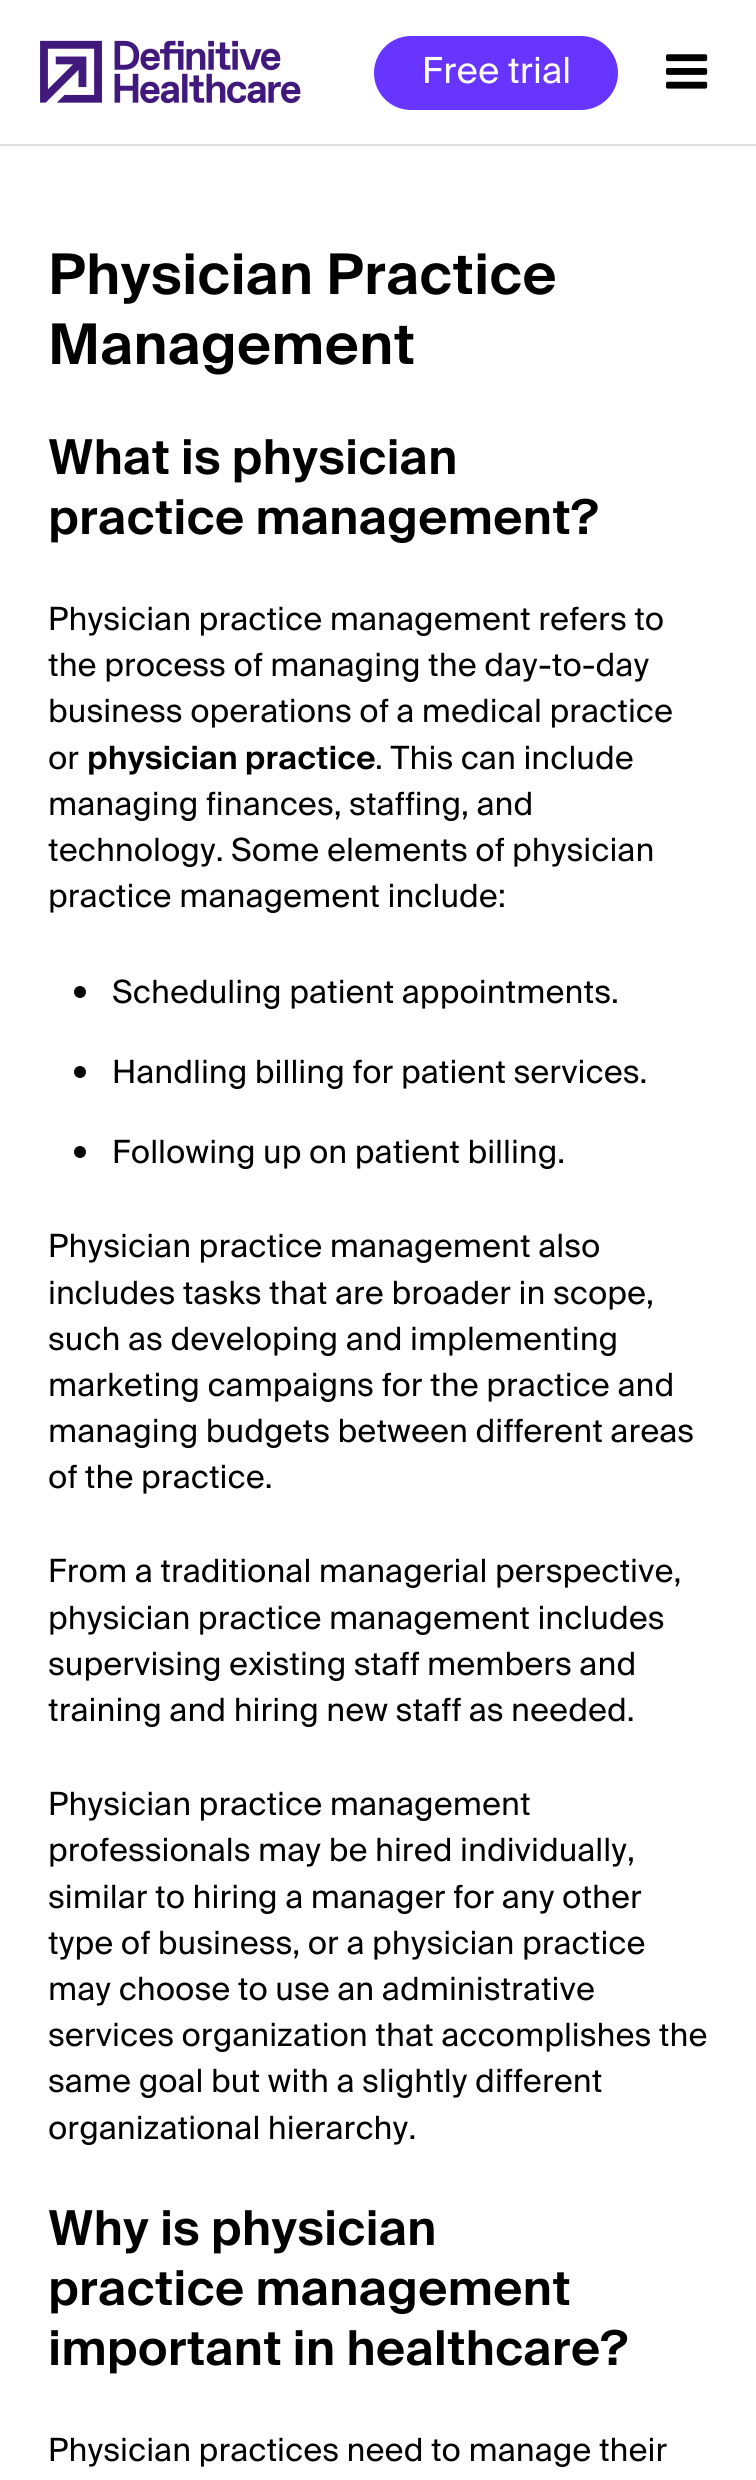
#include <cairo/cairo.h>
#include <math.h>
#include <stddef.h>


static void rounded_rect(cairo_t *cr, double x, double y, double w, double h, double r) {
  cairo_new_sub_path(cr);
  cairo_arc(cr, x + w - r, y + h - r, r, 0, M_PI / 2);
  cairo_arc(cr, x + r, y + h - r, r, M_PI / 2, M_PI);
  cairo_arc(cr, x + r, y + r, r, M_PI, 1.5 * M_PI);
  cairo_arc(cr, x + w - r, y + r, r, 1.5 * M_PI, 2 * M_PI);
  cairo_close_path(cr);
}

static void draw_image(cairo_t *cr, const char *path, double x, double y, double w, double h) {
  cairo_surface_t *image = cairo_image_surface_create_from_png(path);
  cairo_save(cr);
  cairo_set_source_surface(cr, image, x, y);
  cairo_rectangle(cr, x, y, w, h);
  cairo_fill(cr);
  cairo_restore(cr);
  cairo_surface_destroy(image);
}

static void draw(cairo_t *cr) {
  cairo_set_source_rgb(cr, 1, 1, 1);
  cairo_paint(cr);
  cairo_set_source_rgb(cr, 221 / 255.0, 221 / 255.0, 221 / 255.0);
  cairo_rectangle(cr, 0, 144, 756, 2);
  cairo_fill(cr);
  draw_image(cr, "images/1.png", 40, 40, 261, 64);
  cairo_set_source_rgb(cr, 103 / 255.0, 53 / 255.0, 1);
  rounded_rect(cr, 374, 36, 244, 74, 37);
  cairo_fill(cr);
  draw_image(cr, "images/2.png", 666, 54, 42, 35);
  cairo_set_source_rgb(cr, 0, 0, 0);
  cairo_arc(cr, 80, 992, 6, 0, 2 * M_PI);
  cairo_fill(cr);
  cairo_arc(cr, 80, 1072, 6, 0, 2 * M_PI);
  cairo_fill(cr);
  cairo_arc(cr, 80, 1152, 6, 0, 2 * M_PI);
  cairo_fill(cr);
  cairo_select_font_face(cr, "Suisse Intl", CAIRO_FONT_SLANT_NORMAL, CAIRO_FONT_WEIGHT_NORMAL);
  cairo_set_font_size(cr, 36);
  cairo_set_source_rgb(cr, 1, 1, 1);
  cairo_move_to(cr, 422, 83);
  cairo_show_text(cr, "Free trial");
  cairo_select_font_face(cr, "Suisse Intl SemiBold", CAIRO_FONT_SLANT_NORMAL, CAIRO_FONT_WEIGHT_NORMAL);
  cairo_set_font_size(cr, 56);
  cairo_set_source_rgb(cr, 0, 0, 0);
  cairo_move_to(cr, 48, 294);
  cairo_show_text(cr, "Physician Practice");
  cairo_move_to(cr, 48, 364);
  cairo_show_text(cr, "Management");
  cairo_set_font_size(cr, 48);
  cairo_move_to(cr, 48, 474);
  cairo_show_text(cr, "What is physician");
  cairo_move_to(cr, 48, 534);
  cairo_show_text(cr, "practice management?");
  cairo_select_font_face(cr, "Suisse Intl", CAIRO_FONT_SLANT_NORMAL, CAIRO_FONT_WEIGHT_NORMAL);
  cairo_set_font_size(cr, 32);
  cairo_move_to(cr, 48, 630);
  cairo_show_text(cr, "Physician practice management refers to");
  cairo_move_to(cr, 48, 676);
  cairo_show_text(cr, "the process of managing the day-to-day");
  cairo_move_to(cr, 48, 722);
  cairo_show_text(cr, "business operations of a medical practice");
  cairo_move_to(cr, 48, 769);
  cairo_show_text(cr, "or");
  cairo_select_font_face(cr, "Suisse Intl SemiBold", CAIRO_FONT_SLANT_NORMAL, CAIRO_FONT_WEIGHT_NORMAL);
  cairo_move_to(cr, 87, 769);
  cairo_show_text(cr, "physician practice");
  cairo_select_font_face(cr, "Suisse Intl", CAIRO_FONT_SLANT_NORMAL, CAIRO_FONT_WEIGHT_NORMAL);
  cairo_move_to(cr, 375, 769);
  cairo_show_text(cr, ". This can include");
  cairo_move_to(cr, 48, 815);
  cairo_show_text(cr, "managing finances, staffing, and");
  cairo_move_to(cr, 48, 861);
  cairo_show_text(cr, "technology. Some elements of physician");
  cairo_move_to(cr, 48, 907);
  cairo_show_text(cr, "practice management include:");
  cairo_move_to(cr, 112, 1003);
  cairo_show_text(cr, "Scheduling patient appointments.");
  cairo_move_to(cr, 112, 1083);
  cairo_show_text(cr, "Handling billing for patient services.");
  cairo_move_to(cr, 112, 1163);
  cairo_show_text(cr, "Following up on patient billing.");
  cairo_move_to(cr, 48, 1257);
  cairo_show_text(cr, "Physician practice management also");
  cairo_move_to(cr, 48, 1304);
  cairo_show_text(cr, "includes tasks that are broader in scope,");
  cairo_move_to(cr, 48, 1350);
  cairo_show_text(cr, "such as developing and implementing");
  cairo_move_to(cr, 48, 1396);
  cairo_show_text(cr, "marketing campaigns for the practice and");
  cairo_move_to(cr, 48, 1442);
  cairo_show_text(cr, "managing budgets between different areas");
  cairo_move_to(cr, 48, 1488);
  cairo_show_text(cr, "of the practice.");
  cairo_move_to(cr, 48, 1582);
  cairo_show_text(cr, "From a traditional managerial perspective,");
  cairo_move_to(cr, 48, 1629);
  cairo_show_text(cr, "physician practice management includes");
  cairo_move_to(cr, 48, 1675);
  cairo_show_text(cr, "supervising existing staff members and");
  cairo_move_to(cr, 48, 1721);
  cairo_show_text(cr, "training and hiring new staff as needed.");
  cairo_move_to(cr, 48, 1815);
  cairo_show_text(cr, "Physician practice management");
  cairo_move_to(cr, 48, 1861);
  cairo_show_text(cr, "professionals may be hired individually,");
  cairo_move_to(cr, 48, 1908);
  cairo_show_text(cr, "similar to hiring a manager for any other");
  cairo_move_to(cr, 48, 1954);
  cairo_show_text(cr, "type of business, or a physician practice");
  cairo_move_to(cr, 48, 2000);
  cairo_show_text(cr, "may choose to use an administrative");
  cairo_move_to(cr, 48, 2046);
  cairo_show_text(cr, "services organization that accomplishes the");
  cairo_move_to(cr, 48, 2092);
  cairo_show_text(cr, "same goal but with a slightly different");
  cairo_move_to(cr, 48, 2139);
  cairo_show_text(cr, "organizational hierarchy.");
  cairo_select_font_face(cr, "Suisse Intl SemiBold", CAIRO_FONT_SLANT_NORMAL, CAIRO_FONT_WEIGHT_NORMAL);
  cairo_set_font_size(cr, 48);
  cairo_move_to(cr, 48, 2245);
  cairo_show_text(cr, "Why is physician");
  cairo_move_to(cr, 48, 2305);
  cairo_show_text(cr, "practice management");
  cairo_move_to(cr, 48, 2365);
  cairo_show_text(cr, "important in healthcare?");
  cairo_select_font_face(cr, "Suisse Intl", CAIRO_FONT_SLANT_NORMAL, CAIRO_FONT_WEIGHT_NORMAL);
  cairo_set_font_size(cr, 32);
  cairo_move_to(cr, 48, 2461);
  cairo_show_text(cr, "Physician practices need to manage their");
}

int main(void) {
  cairo_surface_t *surface = cairo_image_surface_create(CAIRO_FORMAT_RGB24, 756, 2480);
  cairo_t *cr = cairo_create(surface);
  cairo_font_options_t *options = cairo_font_options_create();
  cairo_font_options_set_hint_metrics(options, CAIRO_HINT_METRICS_OFF);
  cairo_font_options_set_hint_style(options, CAIRO_HINT_STYLE_NONE);
  cairo_set_font_options(cr, options);
  cairo_set_miter_limit(cr, 4);
  draw(cr);
  cairo_surface_write_to_png(surface, "out.png");
  cairo_font_options_destroy(options);
  cairo_destroy(cr);
  cairo_surface_destroy(surface);
  return 0;
}
